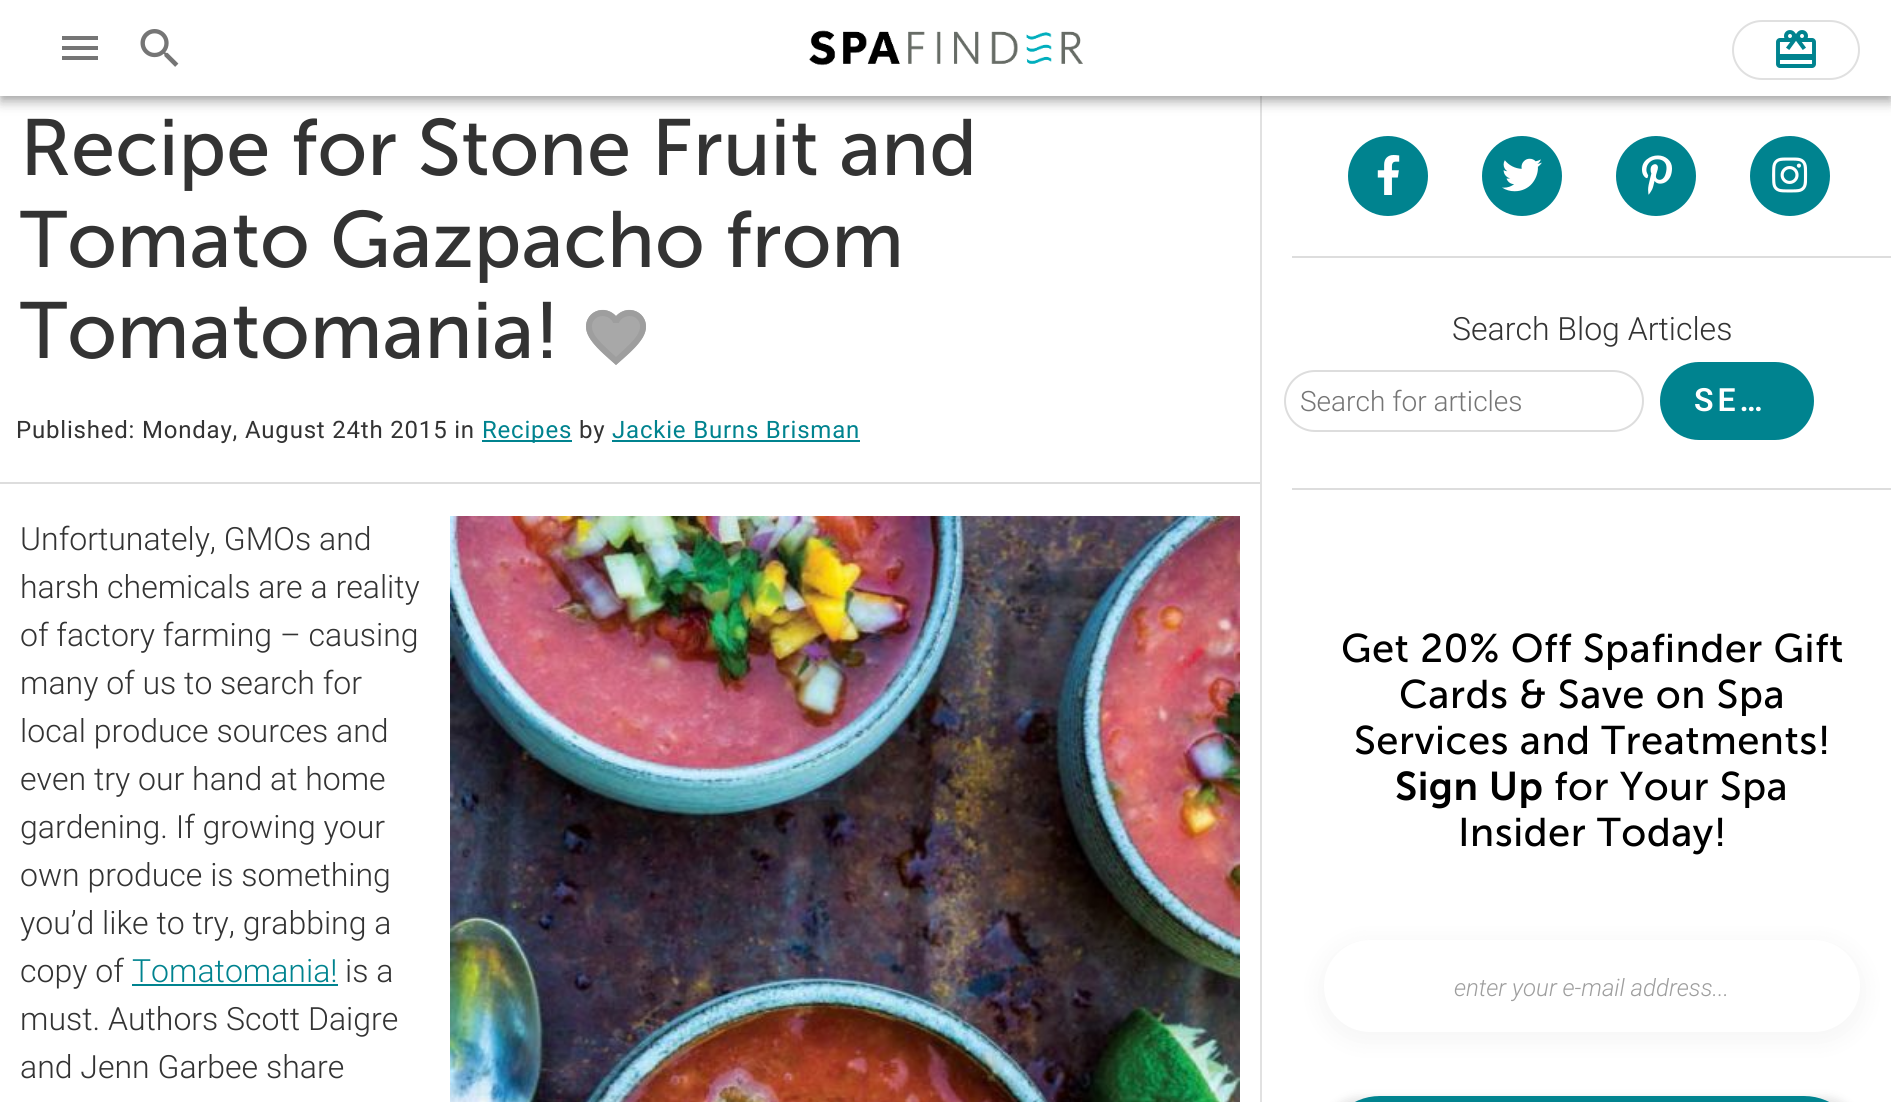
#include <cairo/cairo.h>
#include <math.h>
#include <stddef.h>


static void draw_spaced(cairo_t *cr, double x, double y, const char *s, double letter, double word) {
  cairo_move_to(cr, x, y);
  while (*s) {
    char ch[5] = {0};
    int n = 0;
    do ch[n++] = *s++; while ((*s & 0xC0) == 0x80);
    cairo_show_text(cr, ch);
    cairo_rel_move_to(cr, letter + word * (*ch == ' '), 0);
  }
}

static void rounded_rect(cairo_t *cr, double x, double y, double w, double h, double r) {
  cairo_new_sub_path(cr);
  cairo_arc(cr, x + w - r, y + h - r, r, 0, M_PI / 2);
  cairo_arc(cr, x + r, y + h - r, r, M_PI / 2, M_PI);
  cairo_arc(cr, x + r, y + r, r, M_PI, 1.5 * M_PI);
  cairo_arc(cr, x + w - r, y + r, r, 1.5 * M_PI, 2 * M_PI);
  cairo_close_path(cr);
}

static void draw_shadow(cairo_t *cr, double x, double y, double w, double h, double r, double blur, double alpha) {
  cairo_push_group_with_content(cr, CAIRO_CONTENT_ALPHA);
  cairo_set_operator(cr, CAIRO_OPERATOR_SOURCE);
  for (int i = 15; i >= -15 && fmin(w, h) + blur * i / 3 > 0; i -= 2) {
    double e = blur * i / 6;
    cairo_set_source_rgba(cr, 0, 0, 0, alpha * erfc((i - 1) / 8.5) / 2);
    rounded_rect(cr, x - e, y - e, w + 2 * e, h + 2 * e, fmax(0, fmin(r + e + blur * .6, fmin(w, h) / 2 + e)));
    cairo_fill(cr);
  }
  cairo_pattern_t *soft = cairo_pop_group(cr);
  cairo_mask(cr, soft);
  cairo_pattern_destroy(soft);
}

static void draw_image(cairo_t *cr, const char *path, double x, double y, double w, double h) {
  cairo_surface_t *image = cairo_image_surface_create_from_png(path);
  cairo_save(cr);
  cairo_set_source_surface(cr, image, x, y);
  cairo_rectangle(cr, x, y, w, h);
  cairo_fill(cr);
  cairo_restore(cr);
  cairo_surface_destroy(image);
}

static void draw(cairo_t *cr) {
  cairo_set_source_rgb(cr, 1, 1, 1);
  cairo_paint(cr);
  cairo_set_source_rgb(cr, 225 / 255.0, 225 / 255.0, 225 / 255.0);
  cairo_rectangle(cr, 1260, 96, 2, 1006);
  cairo_fill(cr);
  cairo_set_source_rgb(cr, 0, 0, 0);
  draw_shadow(cr, 0, 2, 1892, 96, 0, 10, 0.12);
  draw_shadow(cr, 0, 8, 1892, 96, 0, 5, 0.14);
  draw_shadow(cr, 2, 6, 1888, 92, 0, 4, 0.2);
  cairo_set_source_rgb(cr, 1, 1, 1);
  cairo_rectangle(cr, 0, 0, 1891, 96);
  cairo_fill(cr);
  cairo_set_source_rgb(cr, 117 / 255.0, 117 / 255.0, 117 / 255.0);
  cairo_new_path(cr);
  cairo_move_to(cr, 62, 36);
  cairo_line_to(cr, 98, 36);
  cairo_line_to(cr, 98, 40);
  cairo_line_to(cr, 62, 40);
  cairo_close_path(cr);
  cairo_move_to(cr, 62, 46);
  cairo_line_to(cr, 98, 46);
  cairo_line_to(cr, 98, 50);
  cairo_line_to(cr, 62, 50);
  cairo_close_path(cr);
  cairo_move_to(cr, 62, 56);
  cairo_line_to(cr, 98, 56);
  cairo_line_to(cr, 98, 60);
  cairo_line_to(cr, 62, 60);
  cairo_close_path(cr);
  cairo_fill(cr);
  draw_image(cr, "images/1.png", 140, 29, 39, 38);
  draw_image(cr, "images/2.png", 809, 30, 274, 36);
  rounded_rect(cr, 1733, 21, 126, 58, 29);
  cairo_set_source_rgb(cr, 224 / 255.0, 224 / 255.0, 224 / 255.0);
  cairo_stroke(cr);
  draw_image(cr, "images/3.png", 1776, 30, 40, 38);
  cairo_set_source_rgb(cr, 168 / 255.0, 168 / 255.0, 168 / 255.0);
  cairo_new_path(cr);
  cairo_move_to(cr, 616, 365);
  cairo_curve_to(cr, 607, 357, 593, 346, 588, 335);
  cairo_curve_to(cr, 579, 316, 602, 301, 616, 316);
  cairo_curve_to(cr, 630, 301, 653, 316, 644, 335);
  cairo_curve_to(cr, 639, 346, 625, 357, 616, 365);
  cairo_close_path(cr);
  cairo_fill(cr);
  draw_image(cr, "images/4.png", 586, 310, 60, 55);
  cairo_set_source_rgb(cr, 0, 131 / 255.0, 143 / 255.0);
  cairo_rectangle(cr, 482, 440, 90, 2);
  cairo_fill(cr);
  cairo_rectangle(cr, 612, 440, 248, 2);
  cairo_fill(cr);
  cairo_set_source_rgb(cr, 221 / 255.0, 221 / 255.0, 221 / 255.0);
  cairo_rectangle(cr, 0, 482, 1260, 2);
  cairo_fill(cr);
  draw_image(cr, "images/5.png", 450, 516, 790, 586);
  cairo_set_source_rgb(cr, 0, 131 / 255.0, 143 / 255.0);
  cairo_rectangle(cr, 132, 984, 206, 2);
  cairo_fill(cr);
  cairo_arc(cr, 1388, 176, 40, 0, 2 * M_PI);
  cairo_fill(cr);
  draw_image(cr, "images/6.png", 1377, 155, 23, 40);
  cairo_arc(cr, 1522, 176, 40, 0, 2 * M_PI);
  cairo_fill(cr);
  draw_image(cr, "images/7.png", 1502, 158, 40, 34);
  cairo_arc(cr, 1656, 176, 40, 0, 2 * M_PI);
  cairo_fill(cr);
  draw_image(cr, "images/8.png", 1642, 155, 30, 40);
  cairo_arc(cr, 1790, 176, 40, 0, 2 * M_PI);
  cairo_fill(cr);
  draw_image(cr, "images/9.png", 1772, 157, 36, 36);
  cairo_set_source_rgb(cr, 221 / 255.0, 221 / 255.0, 221 / 255.0);
  cairo_rectangle(cr, 1292, 256, 599, 2);
  cairo_fill(cr);
  rounded_rect(cr, 1285, 371, 358, 60, 30);
  cairo_stroke(cr);
  cairo_set_source_rgb(cr, 0, 131 / 255.0, 143 / 255.0);
  rounded_rect(cr, 1660, 362, 154, 78, 39);
  cairo_fill(cr);
  cairo_set_source_rgb(cr, 221 / 255.0, 221 / 255.0, 221 / 255.0);
  cairo_rectangle(cr, 1292, 488, 599, 2);
  cairo_fill(cr);
  cairo_set_source_rgb(cr, 0, 0, 0);
  draw_shadow(cr, 1320, 942, 544, 100, 50, 14, 0.04);
  cairo_set_source_rgb(cr, 1, 1, 1);
  rounded_rect(cr, 1324, 940, 536, 92, 46);
  cairo_fill(cr);
  cairo_set_source_rgb(cr, 0, 0, 0);
  draw_shadow(cr, 1324, 1098, 536, 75, 56, 5, 0.12);
  cairo_set_source_rgb(cr, 0, 131 / 255.0, 143 / 255.0);
  rounded_rect(cr, 1324, 1096, 536, 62, 56);
  cairo_fill(cr);
  cairo_select_font_face(cr, "Museo Sans", CAIRO_FONT_SLANT_NORMAL, CAIRO_FONT_WEIGHT_NORMAL);
  cairo_set_font_size(cr, 79.6);
  cairo_set_source_rgb(cr, 51 / 255.0, 51 / 255.0, 51 / 255.0);
  cairo_move_to(cr, 20, 175);
  cairo_show_text(cr, "Recipe for Stone Fruit and");
  cairo_move_to(cr, 20, 267);
  cairo_show_text(cr, "Tomato Gazpacho from");
  cairo_move_to(cr, 20, 358);
  cairo_show_text(cr, "Tomatomania!");
  cairo_select_font_face(cr, "Roboto", CAIRO_FONT_SLANT_NORMAL, CAIRO_FONT_WEIGHT_NORMAL);
  cairo_set_font_size(cr, 24);
  draw_spaced(cr, 16, 438, "Published: Monday, August 24th 2015 in", 0.8, 0);
  cairo_set_source_rgb(cr, 0, 131 / 255.0, 143 / 255.0);
  draw_spaced(cr, 482, 438, "Recipes", 0.8, 0);
  cairo_set_source_rgb(cr, 51 / 255.0, 51 / 255.0, 51 / 255.0);
  draw_spaced(cr, 579, 438, "by", 0.8, 0);
  cairo_set_source_rgb(cr, 0, 131 / 255.0, 143 / 255.0);
  draw_spaced(cr, 612, 438, "Jackie Burns Brisman", 0.8, 0);
  cairo_select_font_face(cr, "Roboto Light", CAIRO_FONT_SLANT_NORMAL, CAIRO_FONT_WEIGHT_NORMAL);
  cairo_set_font_size(cr, 32);
  cairo_set_source_rgb(cr, 51 / 255.0, 51 / 255.0, 51 / 255.0);
  cairo_move_to(cr, 20, 550);
  cairo_show_text(cr, "Unfortunately, GMOs and");
  cairo_move_to(cr, 20, 598);
  cairo_show_text(cr, "harsh chemicals are a reality");
  cairo_move_to(cr, 20, 646);
  cairo_show_text(cr, "of factory farming – causing");
  cairo_move_to(cr, 20, 694);
  cairo_show_text(cr, "many of us to search for");
  cairo_move_to(cr, 20, 742);
  cairo_show_text(cr, "local produce sources and");
  cairo_move_to(cr, 20, 790);
  cairo_show_text(cr, "even try our hand at home");
  cairo_move_to(cr, 20, 838);
  cairo_show_text(cr, "gardening. If growing your");
  cairo_move_to(cr, 20, 886);
  cairo_show_text(cr, "own produce is something");
  cairo_move_to(cr, 20, 934);
  cairo_show_text(cr, "you’d like to try, grabbing a");
  cairo_move_to(cr, 20, 982);
  cairo_show_text(cr, "copy of");
  cairo_set_source_rgb(cr, 0, 131 / 255.0, 143 / 255.0);
  cairo_move_to(cr, 132, 982);
  cairo_show_text(cr, "Tomatomania!");
  cairo_set_source_rgb(cr, 51 / 255.0, 51 / 255.0, 51 / 255.0);
  cairo_move_to(cr, 345, 982);
  cairo_show_text(cr, "is a");
  cairo_move_to(cr, 20, 1030);
  cairo_show_text(cr, "must. Authors Scott Daigre");
  cairo_move_to(cr, 20, 1078);
  cairo_show_text(cr, "and Jenn Garbee share");
  cairo_move_to(cr, 1452, 340);
  cairo_show_text(cr, "Search Blog Articles");
  cairo_set_font_size(cr, 28);
  cairo_set_source_rgb(cr, 117 / 255.0, 117 / 255.0, 117 / 255.0);
  cairo_move_to(cr, 1300, 411);
  cairo_show_text(cr, "Search for articles");
  cairo_select_font_face(cr, "Roboto SemiBold", CAIRO_FONT_SLANT_NORMAL, CAIRO_FONT_WEIGHT_NORMAL);
  cairo_set_font_size(cr, 32);
  cairo_set_source_rgb(cr, 1, 1, 1);
  draw_spaced(cr, 1694, 411, "SE…", 4, 0);
  cairo_select_font_face(cr, "Museo Sans", CAIRO_FONT_SLANT_NORMAL, CAIRO_FONT_WEIGHT_NORMAL);
  cairo_set_font_size(cr, 40);
  cairo_set_source_rgb(cr, 0, 0, 0);
  draw_spaced(cr, 1341, 662, "Get 20% Off Spafinder Gift", 0.5, 0);
  draw_spaced(cr, 1399, 708, "Cards & Save on Spa", 0.5, 0);
  draw_spaced(cr, 1354, 754, "Services and Treatments!", 0.5, 0);
  cairo_select_font_face(cr, "Museo Sans SemiBold", CAIRO_FONT_SLANT_NORMAL, CAIRO_FONT_WEIGHT_NORMAL);
  draw_spaced(cr, 1395, 800, "Sign Up", 0.5, 0);
  cairo_select_font_face(cr, "Museo Sans", CAIRO_FONT_SLANT_NORMAL, CAIRO_FONT_WEIGHT_NORMAL);
  draw_spaced(cr, 1554, 800, "for Your Spa", 0.5, 0);
  draw_spaced(cr, 1458, 846, "Insider Today!", 0.5, 0);
  cairo_select_font_face(cr, "Roboto Light", CAIRO_FONT_SLANT_ITALIC, CAIRO_FONT_WEIGHT_NORMAL);
  cairo_set_font_size(cr, 24);
  cairo_set_source_rgb(cr, 158 / 255.0, 158 / 255.0, 158 / 255.0);
  cairo_move_to(cr, 1454, 996);
  cairo_show_text(cr, "enter your e-mail address...");
}

int main(void) {
  cairo_surface_t *surface = cairo_image_surface_create(CAIRO_FORMAT_RGB24, 1891, 1102);
  cairo_t *cr = cairo_create(surface);
  cairo_font_options_t *options = cairo_font_options_create();
  cairo_font_options_set_hint_metrics(options, CAIRO_HINT_METRICS_OFF);
  cairo_font_options_set_hint_style(options, CAIRO_HINT_STYLE_NONE);
  cairo_set_font_options(cr, options);
  cairo_set_miter_limit(cr, 4);
  draw(cr);
  cairo_surface_write_to_png(surface, "out.png");
  cairo_font_options_destroy(options);
  cairo_destroy(cr);
  cairo_surface_destroy(surface);
  return 0;
}
